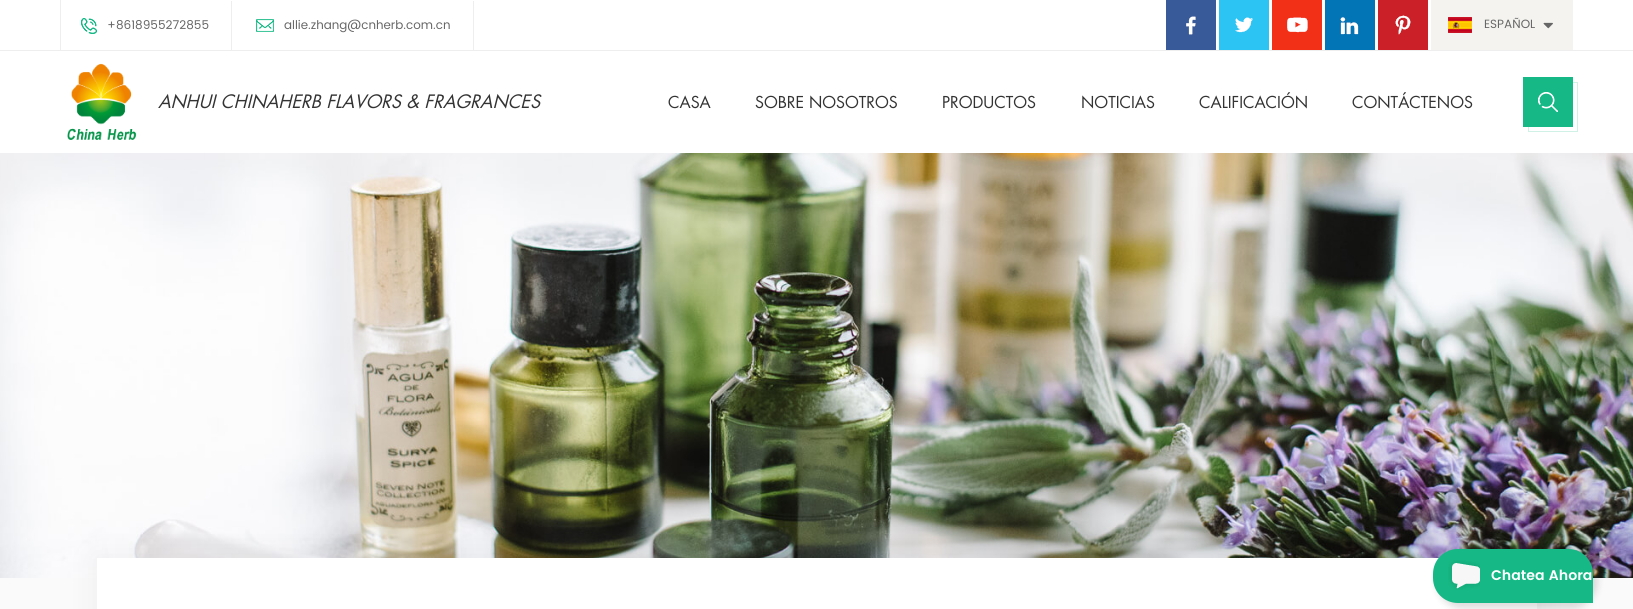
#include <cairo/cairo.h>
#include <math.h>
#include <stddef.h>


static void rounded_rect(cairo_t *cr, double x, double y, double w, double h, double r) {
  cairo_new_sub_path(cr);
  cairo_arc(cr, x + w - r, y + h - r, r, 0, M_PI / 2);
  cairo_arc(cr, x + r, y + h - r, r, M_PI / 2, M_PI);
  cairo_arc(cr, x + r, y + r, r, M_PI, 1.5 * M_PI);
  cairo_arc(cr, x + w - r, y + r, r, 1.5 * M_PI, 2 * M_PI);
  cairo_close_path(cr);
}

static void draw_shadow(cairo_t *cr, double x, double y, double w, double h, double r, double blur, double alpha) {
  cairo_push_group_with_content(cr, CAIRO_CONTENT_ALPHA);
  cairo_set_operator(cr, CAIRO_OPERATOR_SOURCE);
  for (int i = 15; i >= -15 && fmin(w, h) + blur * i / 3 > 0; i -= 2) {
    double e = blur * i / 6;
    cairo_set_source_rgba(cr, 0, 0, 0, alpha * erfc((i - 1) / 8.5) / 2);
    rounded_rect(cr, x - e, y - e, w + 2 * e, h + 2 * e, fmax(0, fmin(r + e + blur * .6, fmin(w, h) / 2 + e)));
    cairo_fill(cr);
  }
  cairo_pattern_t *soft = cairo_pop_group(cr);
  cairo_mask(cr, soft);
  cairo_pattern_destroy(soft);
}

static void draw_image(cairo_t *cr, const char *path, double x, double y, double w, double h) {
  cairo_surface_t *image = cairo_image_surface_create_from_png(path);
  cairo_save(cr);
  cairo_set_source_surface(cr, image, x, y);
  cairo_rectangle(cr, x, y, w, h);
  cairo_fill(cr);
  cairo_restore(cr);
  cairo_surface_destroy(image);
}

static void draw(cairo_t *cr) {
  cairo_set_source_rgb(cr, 1, 1, 1);
  cairo_paint(cr);
  cairo_set_source_rgb(cr, 238 / 255.0, 238 / 255.0, 238 / 255.0);
  cairo_rectangle(cr, 0, 50, 1633, 1);
  cairo_fill(cr);
  cairo_rectangle(cr, 60, 0, 1, 50);
  cairo_fill(cr);
  cairo_rectangle(cr, 231, 1, 1, 50);
  cairo_fill(cr);
  draw_image(cr, "images/1.png", 81, 18, 16, 16);
  cairo_rectangle(cr, 473, 1, 1, 50);
  cairo_fill(cr);
  draw_image(cr, "images/2.png", 256, 19, 18, 13);
  draw_image(cr, "images/3.png", 1166, 0, 50, 50);
  draw_image(cr, "images/4.png", 1219, 0, 50, 50);
  draw_image(cr, "images/5.png", 1272, 0, 50, 50);
  draw_image(cr, "images/6.png", 1325, 0, 50, 50);
  draw_image(cr, "images/7.png", 1378, 0, 50, 50);
  cairo_set_source_rgb(cr, 244 / 255.0, 243 / 255.0, 239 / 255.0);
  cairo_rectangle(cr, 1431, 0, 142, 50);
  cairo_fill(cr);
  draw_image(cr, "images/8.png", 1543, 22, 10, 7);
  draw_image(cr, "images/9.png", 1448, 17, 24, 16);
  draw_image(cr, "images/10.png", 67, 63, 70, 77);
  cairo_set_source_rgb(cr, 22 / 255.0, 185 / 255.0, 133 / 255.0);
  cairo_rectangle(cr, 1523, 77, 50, 50);
  cairo_fill(cr);
  draw_image(cr, "images/11.png", 1538, 92, 20, 20);
  cairo_rectangle(cr, 1528.5, 82.5, 49, 49);
  cairo_set_source_rgba(cr, 22 / 255.0, 185 / 255.0, 133 / 255.0, 0.2);
  cairo_set_line_width(cr, 1);
  cairo_stroke(cr);
  draw_image(cr, "images/12.png", 0, 153, 1633, 425);
  cairo_set_source_rgb(cr, 250 / 255.0, 250 / 255.0, 250 / 255.0);
  cairo_rectangle(cr, 0, 578, 1633, 31);
  cairo_fill(cr);
  cairo_set_source_rgb(cr, 0, 0, 0);
  draw_shadow(cr, 95, 556, 1444, 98, 0, 15, 0.05);
  cairo_set_source_rgb(cr, 1, 1, 1);
  cairo_rectangle(cr, 97, 558, 1440, 51);
  cairo_fill(cr);
  cairo_set_source_rgb(cr, 0, 0, 0);
  draw_shadow(cr, 1437, 554, 160, 54, 25, 4, 0.15);
  cairo_set_source_rgb(cr, 22 / 255.0, 185 / 255.0, 133 / 255.0);
  cairo_new_path(cr);
  cairo_move_to(cr, 1458, 549);
  cairo_line_to(cr, 1568, 549);
  cairo_curve_to(cr, 1582, 549, 1593, 560, 1593, 574);
  cairo_line_to(cr, 1593, 603);
  cairo_line_to(cr, 1458, 603);
  cairo_curve_to(cr, 1444, 603, 1433, 592, 1433, 578);
  cairo_line_to(cr, 1433, 574);
  cairo_curve_to(cr, 1433, 560, 1444, 549, 1458, 549);
  cairo_close_path(cr);
  cairo_fill(cr);
  draw_image(cr, "images/13.png", 1448, 560, 32, 30);
  cairo_select_font_face(cr, "Poppins", CAIRO_FONT_SLANT_NORMAL, CAIRO_FONT_WEIGHT_NORMAL);
  cairo_set_font_size(cr, 12);
  cairo_set_source_rgb(cr, 102 / 255.0, 102 / 255.0, 102 / 255.0);
  cairo_move_to(cr, 107, 29);
  cairo_show_text(cr, "+8618955272855");
  cairo_move_to(cr, 284, 29);
  cairo_show_text(cr, "allie.zhang@cnherb.com.cn");
  cairo_move_to(cr, 1484, 28);
  cairo_show_text(cr, "ESPAÑOL");
  cairo_select_font_face(cr, "Futura", CAIRO_FONT_SLANT_ITALIC, CAIRO_FONT_WEIGHT_NORMAL);
  cairo_set_font_size(cr, 18);
  cairo_set_source_rgb(cr, 51 / 255.0, 51 / 255.0, 51 / 255.0);
  cairo_move_to(cr, 158, 108);
  cairo_show_text(cr, "ANHUI CHINAHERB FLAVORS & FRAGRANCES");
  cairo_select_font_face(cr, "Futura", CAIRO_FONT_SLANT_NORMAL, CAIRO_FONT_WEIGHT_NORMAL);
  cairo_set_font_size(cr, 16);
  cairo_move_to(cr, 668, 108);
  cairo_show_text(cr, "CASA");
  cairo_move_to(cr, 755, 108);
  cairo_show_text(cr, "SOBRE NOSOTROS");
  cairo_move_to(cr, 942, 108);
  cairo_show_text(cr, "PRODUCTOS");
  cairo_move_to(cr, 1081, 108);
  cairo_show_text(cr, "NOTICIAS");
  cairo_move_to(cr, 1199, 108);
  cairo_show_text(cr, "CALIFICACIÓN");
  cairo_move_to(cr, 1352, 108);
  cairo_show_text(cr, "CONTÁCTENOS");
  cairo_select_font_face(cr, "Poppins SemiBold", CAIRO_FONT_SLANT_NORMAL, CAIRO_FONT_WEIGHT_NORMAL);
  cairo_set_font_size(cr, 14);
  cairo_set_source_rgb(cr, 1, 1, 1);
  cairo_move_to(cr, 1491, 580);
  cairo_show_text(cr, "Chatea Ahora");
}

int main(void) {
  cairo_surface_t *surface = cairo_image_surface_create(CAIRO_FORMAT_RGB24, 1633, 609);
  cairo_t *cr = cairo_create(surface);
  cairo_font_options_t *options = cairo_font_options_create();
  cairo_font_options_set_hint_metrics(options, CAIRO_HINT_METRICS_OFF);
  cairo_font_options_set_hint_style(options, CAIRO_HINT_STYLE_NONE);
  cairo_set_font_options(cr, options);
  cairo_set_miter_limit(cr, 4);
  draw(cr);
  cairo_surface_write_to_png(surface, "out.png");
  cairo_font_options_destroy(options);
  cairo_destroy(cr);
  cairo_surface_destroy(surface);
  return 0;
}
